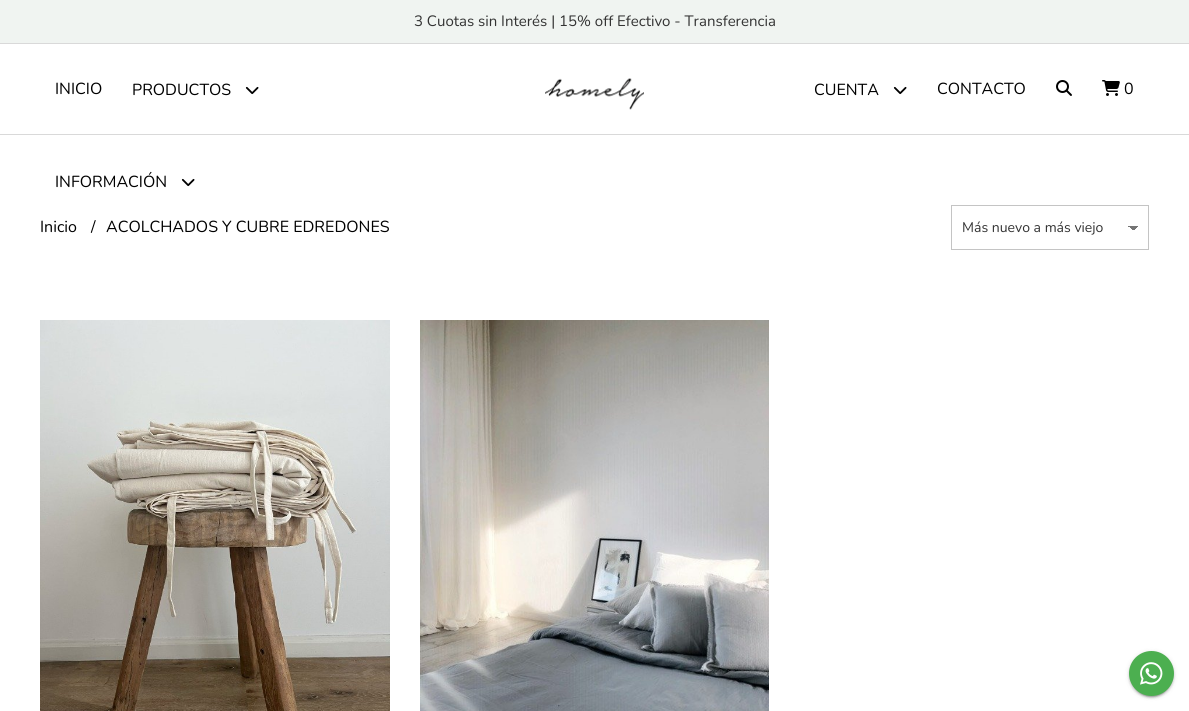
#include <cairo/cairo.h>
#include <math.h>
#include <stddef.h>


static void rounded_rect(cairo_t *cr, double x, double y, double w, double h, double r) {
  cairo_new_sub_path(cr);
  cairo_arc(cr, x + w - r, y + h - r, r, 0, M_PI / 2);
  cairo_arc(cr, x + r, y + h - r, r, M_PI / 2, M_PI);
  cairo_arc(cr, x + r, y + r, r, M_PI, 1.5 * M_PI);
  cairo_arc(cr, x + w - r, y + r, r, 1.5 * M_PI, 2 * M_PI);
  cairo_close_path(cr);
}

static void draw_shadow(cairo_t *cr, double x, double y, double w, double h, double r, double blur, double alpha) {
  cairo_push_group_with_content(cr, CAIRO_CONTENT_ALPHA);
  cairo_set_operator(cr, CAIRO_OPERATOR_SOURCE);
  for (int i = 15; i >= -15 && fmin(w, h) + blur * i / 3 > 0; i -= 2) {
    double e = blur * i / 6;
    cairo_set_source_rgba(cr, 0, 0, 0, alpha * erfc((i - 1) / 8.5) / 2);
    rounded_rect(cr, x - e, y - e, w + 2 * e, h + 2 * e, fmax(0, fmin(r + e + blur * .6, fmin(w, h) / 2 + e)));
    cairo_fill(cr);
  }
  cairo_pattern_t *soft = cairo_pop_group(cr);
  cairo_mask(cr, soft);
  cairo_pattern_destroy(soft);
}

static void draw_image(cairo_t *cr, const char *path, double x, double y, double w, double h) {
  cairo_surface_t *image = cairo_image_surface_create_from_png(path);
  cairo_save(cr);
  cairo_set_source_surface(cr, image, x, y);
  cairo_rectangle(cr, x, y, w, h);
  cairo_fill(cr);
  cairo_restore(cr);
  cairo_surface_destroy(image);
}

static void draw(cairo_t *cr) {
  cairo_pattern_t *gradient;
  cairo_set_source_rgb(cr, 1, 1, 1);
  cairo_paint(cr);
  cairo_set_source_rgb(cr, 240 / 255.0, 244 / 255.0, 241 / 255.0);
  cairo_rectangle(cr, 0, 0, 1189, 43);
  cairo_fill(cr);
  cairo_set_source_rgb(cr, 217 / 255.0, 217 / 255.0, 217 / 255.0);
  cairo_rectangle(cr, 0, 43, 1189, 1);
  cairo_fill(cr);
  cairo_rectangle(cr, 0, 134, 1189, 1);
  cairo_fill(cr);
  draw_image(cr, "images/1.png", 245, 86, 14, 9);
  draw_image(cr, "images/1.png", 181, 178, 14, 9);
  draw_image(cr, "images/2.png", 545, 78, 99, 32);
  draw_image(cr, "images/1.png", 893, 86, 14, 9);
  draw_image(cr, "images/3.png", 1056, 80, 16, 16);
  draw_image(cr, "images/4.png", 1102, 80, 18, 16);
  gradient = cairo_pattern_create_linear(1133, 226, 1138, 231);
  cairo_pattern_add_color_stop_rgba(gradient, 0.5, 117 / 255.0, 117 / 255.0, 117 / 255.0, 1);
  cairo_pattern_add_color_stop_rgba(gradient, 0.5, 1, 1, 1, 1);
  cairo_set_source(cr, gradient);
  cairo_pattern_destroy(gradient);
  cairo_rectangle(cr, 1133, 226, 5, 4);
  cairo_fill(cr);
  gradient = cairo_pattern_create_linear(1128, 231, 1133, 226);
  cairo_pattern_add_color_stop_rgba(gradient, 0.5, 1, 1, 1, 1);
  cairo_pattern_add_color_stop_rgba(gradient, 0.5, 117 / 255.0, 117 / 255.0, 117 / 255.0, 1);
  cairo_set_source(cr, gradient);
  cairo_pattern_destroy(gradient);
  cairo_rectangle(cr, 1128, 226, 5, 4);
  cairo_fill(cr);
  cairo_rectangle(cr, 951.5, 205.5, 197, 44);
  cairo_set_source_rgb(cr, 196 / 255.0, 196 / 255.0, 196 / 255.0);
  cairo_set_line_width(cr, 1);
  cairo_stroke(cr);
  draw_image(cr, "images/5.png", 40, 320, 350, 391);
  draw_image(cr, "images/6.png", 420, 320, 349, 391);
  cairo_set_source_rgb(cr, 0, 0, 0);
  draw_shadow(cr, 1131, 656, 41, 41, 20.5, 0.5, 0.2);
  draw_shadow(cr, 1129, 652, 45, 45, 22.5, 2.5, 0.12);
  draw_shadow(cr, 1129, 653, 45, 45, 22.5, 1, 0.14);
  cairo_set_source_rgb(cr, 76 / 255.0, 175 / 255.0, 80 / 255.0);
  cairo_arc(cr, 1151.5, 673.5, 22.5, 0, 2 * M_PI);
  cairo_fill(cr);
  draw_image(cr, "images/7.png", 1140, 662, 23, 23);
  cairo_select_font_face(cr, "Nunito", CAIRO_FONT_SLANT_NORMAL, CAIRO_FONT_WEIGHT_NORMAL);
  cairo_set_font_size(cr, 15);
  cairo_set_source_rgb(cr, 51 / 255.0, 51 / 255.0, 51 / 255.0);
  cairo_move_to(cr, 414, 26);
  cairo_show_text(cr, "3 Cuotas sin Interés | 15% off Efectivo - Transferencia");
  cairo_set_font_size(cr, 16);
  cairo_set_source_rgb(cr, 0, 0, 0);
  cairo_move_to(cr, 55, 94);
  cairo_show_text(cr, "INICIO");
  cairo_move_to(cr, 132, 95);
  cairo_show_text(cr, "PRODUCTOS");
  cairo_move_to(cr, 55, 187);
  cairo_show_text(cr, "INFORMACIÓN");
  cairo_move_to(cr, 814, 95);
  cairo_show_text(cr, "CUENTA");
  cairo_move_to(cr, 937, 94);
  cairo_show_text(cr, "CONTACTO");
  cairo_move_to(cr, 1124, 94);
  cairo_show_text(cr, "0");
  cairo_move_to(cr, 40, 232);
  cairo_show_text(cr, "Inicio");
  cairo_move_to(cr, 91, 232);
  cairo_show_text(cr, "/");
  cairo_move_to(cr, 106, 232);
  cairo_show_text(cr, "ACOLCHADOS Y CUBRE EDREDONES");
  cairo_set_font_size(cr, 14);
  cairo_set_source_rgb(cr, 51 / 255.0, 51 / 255.0, 51 / 255.0);
  cairo_move_to(cr, 962, 232);
  cairo_show_text(cr, "Más nuevo a más viejo");
}

int main(void) {
  cairo_surface_t *surface = cairo_image_surface_create(CAIRO_FORMAT_RGB24, 1189, 711);
  cairo_t *cr = cairo_create(surface);
  cairo_font_options_t *options = cairo_font_options_create();
  cairo_font_options_set_hint_metrics(options, CAIRO_HINT_METRICS_OFF);
  cairo_font_options_set_hint_style(options, CAIRO_HINT_STYLE_NONE);
  cairo_set_font_options(cr, options);
  cairo_set_miter_limit(cr, 4);
  draw(cr);
  cairo_surface_write_to_png(surface, "out.png");
  cairo_font_options_destroy(options);
  cairo_destroy(cr);
  cairo_surface_destroy(surface);
  return 0;
}
